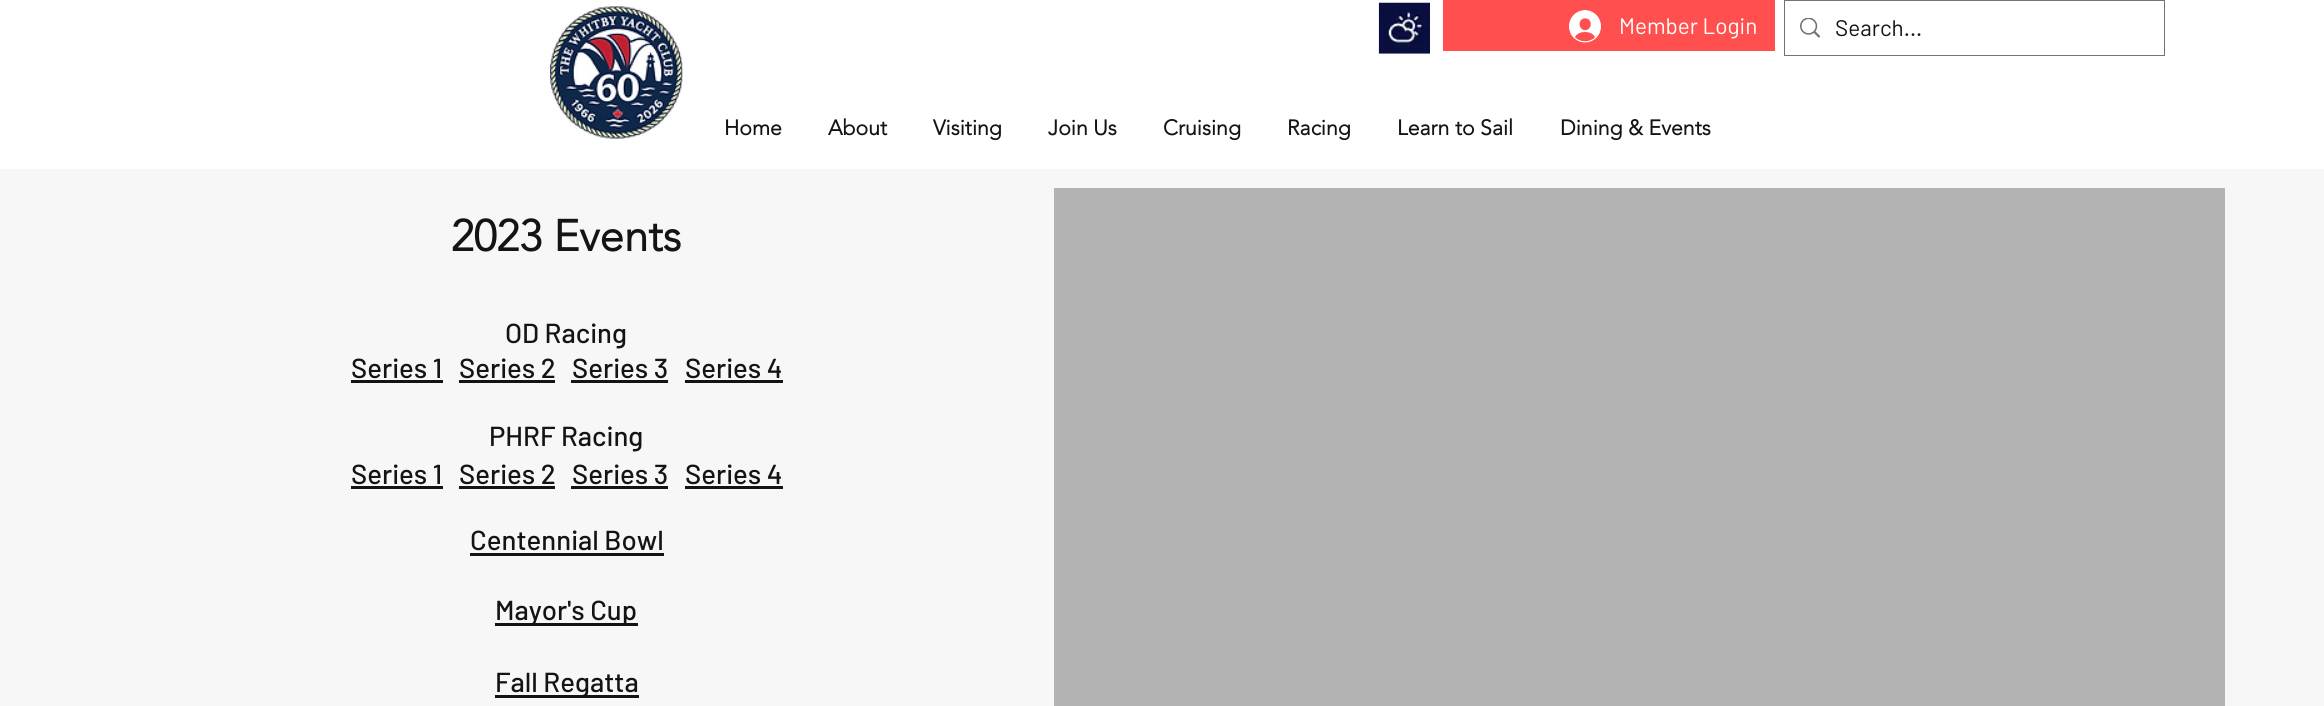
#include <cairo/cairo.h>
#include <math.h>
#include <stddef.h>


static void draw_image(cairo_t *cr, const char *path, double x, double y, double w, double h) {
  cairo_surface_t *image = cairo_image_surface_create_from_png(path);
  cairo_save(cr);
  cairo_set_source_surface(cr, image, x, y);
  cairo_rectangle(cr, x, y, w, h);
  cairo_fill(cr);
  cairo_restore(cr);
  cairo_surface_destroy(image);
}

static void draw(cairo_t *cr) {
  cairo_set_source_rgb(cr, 247 / 255.0, 247 / 255.0, 247 / 255.0);
  cairo_paint(cr);
  cairo_set_source_rgb(cr, 1, 1, 1);
  cairo_rectangle(cr, 0, 0, 2324, 169);
  cairo_fill(cr);
  draw_image(cr, "images/1.png", 550, 6, 133, 133);
  draw_image(cr, "images/2.png", 1378, 2, 52, 52);
  cairo_set_source_rgb(cr, 1, 79 / 255.0, 79 / 255.0);
  cairo_rectangle(cr, 1443, 0, 332, 51);
  cairo_fill(cr);
  draw_image(cr, "images/3.png", 1569, 10, 32, 33);
  cairo_rectangle(cr, 1784.5, 0.5, 380, 55);
  cairo_set_source_rgb(cr, 114 / 255.0, 114 / 255.0, 114 / 255.0);
  cairo_set_line_width(cr, 1);
  cairo_stroke(cr);
  draw_image(cr, "images/4.png", 1800, 18, 20, 20);
  cairo_set_source_rgb(cr, 20 / 255.0, 20 / 255.0, 20 / 255.0);
  cairo_rectangle(cr, 351, 380, 92, 3);
  cairo_fill(cr);
  cairo_rectangle(cr, 459, 380, 96, 3);
  cairo_fill(cr);
  cairo_rectangle(cr, 571, 380, 97, 3);
  cairo_fill(cr);
  cairo_rectangle(cr, 685, 380, 98, 3);
  cairo_fill(cr);
  cairo_rectangle(cr, 351, 486, 92, 3);
  cairo_fill(cr);
  cairo_rectangle(cr, 459, 486, 96, 3);
  cairo_fill(cr);
  cairo_rectangle(cr, 571, 486, 97, 3);
  cairo_fill(cr);
  cairo_rectangle(cr, 685, 486, 98, 3);
  cairo_fill(cr);
  cairo_rectangle(cr, 470, 553, 194, 3);
  cairo_fill(cr);
  cairo_rectangle(cr, 495, 623, 143, 3);
  cairo_fill(cr);
  cairo_rectangle(cr, 495, 695, 144, 3);
  cairo_fill(cr);
  cairo_set_source_rgb(cr, 179 / 255.0, 179 / 255.0, 179 / 255.0);
  cairo_rectangle(cr, 1054, 188, 1171, 518);
  cairo_fill(cr);
  cairo_select_font_face(cr, "Barlow", CAIRO_FONT_SLANT_NORMAL, CAIRO_FONT_WEIGHT_NORMAL);
  cairo_set_font_size(cr, 22.5);
  cairo_set_source_rgb(cr, 1, 1, 1);
  cairo_move_to(cr, 1619, 34);
  cairo_show_text(cr, "Member Login");
  cairo_set_source_rgb(cr, 20 / 255.0, 20 / 255.0, 20 / 255.0);
  cairo_move_to(cr, 1835, 36);
  cairo_show_text(cr, "Search...");
  cairo_select_font_face(cr, "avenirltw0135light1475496", CAIRO_FONT_SLANT_NORMAL, CAIRO_FONT_WEIGHT_BOLD);
  cairo_set_font_size(cr, 21.25);
  cairo_move_to(cr, 724, 135);
  cairo_show_text(cr, "Home");
  cairo_move_to(cr, 828, 135);
  cairo_show_text(cr, "About");
  cairo_move_to(cr, 933, 135);
  cairo_show_text(cr, "Visiting");
  cairo_move_to(cr, 1048, 135);
  cairo_show_text(cr, "Join Us");
  cairo_move_to(cr, 1163, 135);
  cairo_show_text(cr, "Cruising");
  cairo_move_to(cr, 1287, 135);
  cairo_show_text(cr, "Racing");
  cairo_move_to(cr, 1397, 135);
  cairo_show_text(cr, "Learn to Sail");
  cairo_move_to(cr, 1560, 135);
  cairo_show_text(cr, "Dining & Events");
  cairo_set_font_size(cr, 43.75);
  cairo_move_to(cr, 451, 251);
  cairo_show_text(cr, "2023 Events");
  cairo_select_font_face(cr, "Barlow Medium", CAIRO_FONT_SLANT_NORMAL, CAIRO_FONT_WEIGHT_NORMAL);
  cairo_set_font_size(cr, 27.5);
  cairo_move_to(cr, 505, 343);
  cairo_show_text(cr, "OD Racing");
  cairo_move_to(cr, 351, 378);
  cairo_show_text(cr, "Series 1");
  cairo_move_to(cr, 459, 378);
  cairo_show_text(cr, "Series 2");
  cairo_move_to(cr, 572, 378);
  cairo_show_text(cr, "Series 3");
  cairo_move_to(cr, 685, 378);
  cairo_show_text(cr, "Series 4");
  cairo_move_to(cr, 489, 446);
  cairo_show_text(cr, "PHRF Racing");
  cairo_move_to(cr, 351, 484);
  cairo_show_text(cr, "Series 1");
  cairo_move_to(cr, 459, 484);
  cairo_show_text(cr, "Series 2");
  cairo_move_to(cr, 572, 484);
  cairo_show_text(cr, "Series 3");
  cairo_move_to(cr, 685, 484);
  cairo_show_text(cr, "Series 4");
  cairo_move_to(cr, 470, 550);
  cairo_show_text(cr, "Centennial Bowl");
  cairo_move_to(cr, 495, 620);
  cairo_show_text(cr, "Mayor's Cup");
  cairo_move_to(cr, 495, 692);
  cairo_show_text(cr, "Fall Regatta");
}

int main(void) {
  cairo_surface_t *surface = cairo_image_surface_create(CAIRO_FORMAT_RGB24, 2324, 706);
  cairo_t *cr = cairo_create(surface);
  cairo_font_options_t *options = cairo_font_options_create();
  cairo_font_options_set_hint_metrics(options, CAIRO_HINT_METRICS_OFF);
  cairo_font_options_set_hint_style(options, CAIRO_HINT_STYLE_NONE);
  cairo_set_font_options(cr, options);
  cairo_set_miter_limit(cr, 4);
  draw(cr);
  cairo_surface_write_to_png(surface, "out.png");
  cairo_font_options_destroy(options);
  cairo_destroy(cr);
  cairo_surface_destroy(surface);
  return 0;
}
